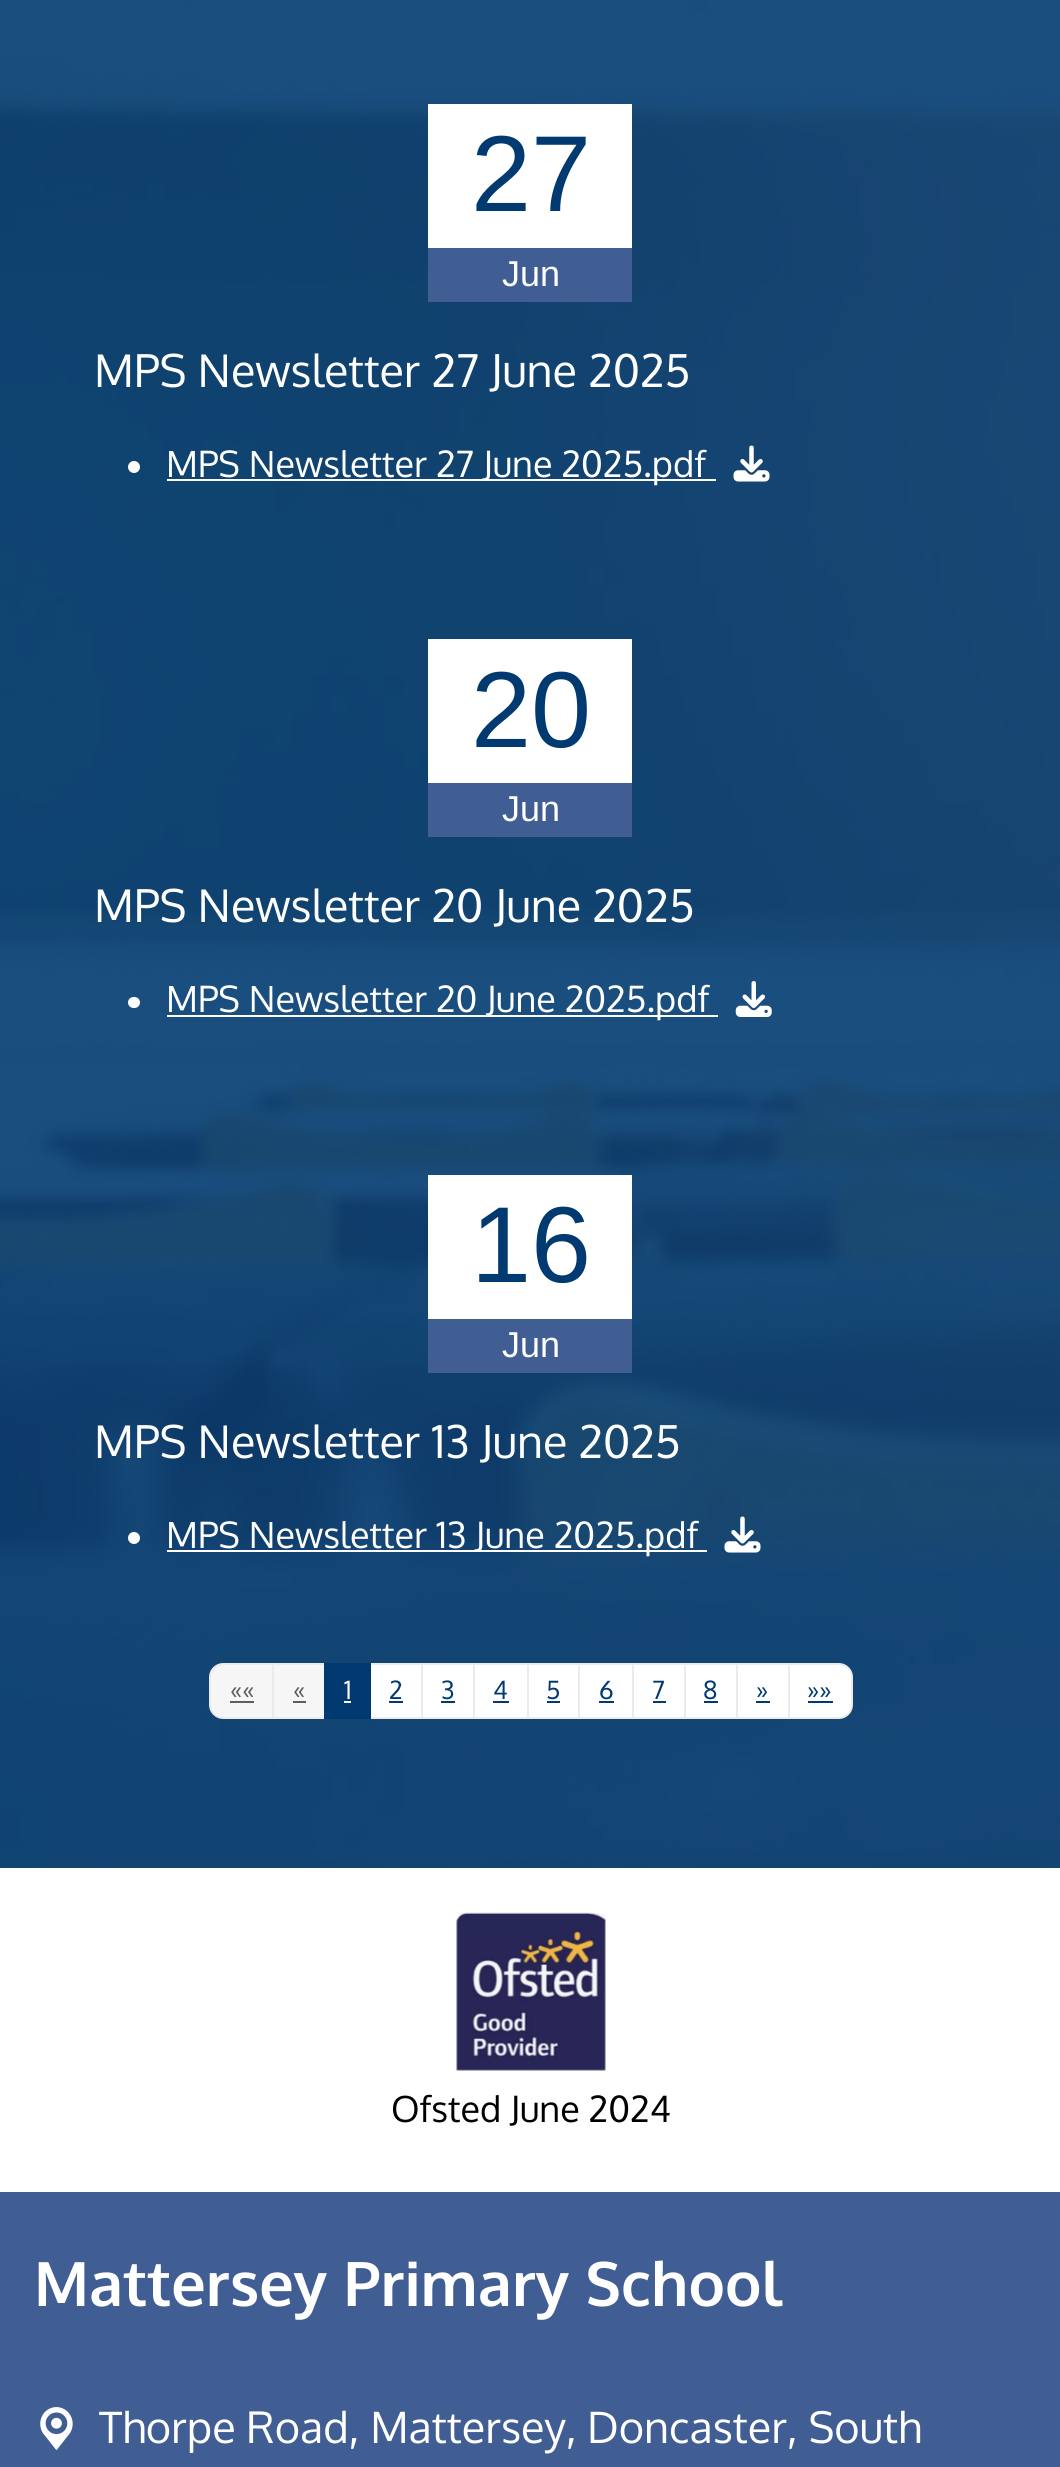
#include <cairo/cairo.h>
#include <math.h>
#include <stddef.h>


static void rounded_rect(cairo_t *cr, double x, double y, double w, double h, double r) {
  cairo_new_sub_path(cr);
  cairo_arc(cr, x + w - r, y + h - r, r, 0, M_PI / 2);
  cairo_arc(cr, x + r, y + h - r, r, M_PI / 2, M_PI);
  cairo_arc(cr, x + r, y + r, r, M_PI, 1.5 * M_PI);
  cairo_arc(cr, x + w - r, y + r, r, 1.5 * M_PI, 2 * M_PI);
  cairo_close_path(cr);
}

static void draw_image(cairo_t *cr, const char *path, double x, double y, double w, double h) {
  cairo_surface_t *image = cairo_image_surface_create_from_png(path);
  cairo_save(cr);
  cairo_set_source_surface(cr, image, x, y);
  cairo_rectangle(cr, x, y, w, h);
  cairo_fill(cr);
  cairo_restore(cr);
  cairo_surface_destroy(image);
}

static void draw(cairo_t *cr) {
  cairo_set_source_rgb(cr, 1, 1, 1);
  cairo_paint(cr);
  draw_image(cr, "images/1.png", 0, 0, 1060, 1868);
  cairo_set_source_rgb(cr, 1, 1, 1);
  cairo_rectangle(cr, 428, 104, 204, 144);
  cairo_fill(cr);
  cairo_set_source_rgb(cr, 64 / 255.0, 93 / 255.0, 148 / 255.0);
  cairo_rectangle(cr, 428, 248, 204, 54);
  cairo_fill(cr);
  cairo_set_source_rgb(cr, 1, 1, 1);
  cairo_arc(cr, 134, 467, 6, 0, 2 * M_PI);
  cairo_fill(cr);
  cairo_rectangle(cr, 167, 479, 549, 2);
  cairo_fill(cr);
  draw_image(cr, "images/2.png", 733, 445, 37, 37);
  cairo_rectangle(cr, 428, 639, 204, 144);
  cairo_fill(cr);
  cairo_set_source_rgb(cr, 64 / 255.0, 93 / 255.0, 148 / 255.0);
  cairo_rectangle(cr, 428, 783, 204, 54);
  cairo_fill(cr);
  cairo_set_source_rgb(cr, 1, 1, 1);
  rounded_rect(cr, 128, 997, 12, 11, 5.5);
  cairo_fill(cr);
  cairo_rectangle(cr, 167, 1015, 551, 2);
  cairo_fill(cr);
  draw_image(cr, "images/3.png", 735, 981, 37, 36);
  cairo_rectangle(cr, 428, 1175, 204, 144);
  cairo_fill(cr);
  cairo_set_source_rgb(cr, 64 / 255.0, 93 / 255.0, 148 / 255.0);
  cairo_rectangle(cr, 428, 1319, 204, 54);
  cairo_fill(cr);
  cairo_set_source_rgb(cr, 1, 1, 1);
  cairo_arc(cr, 134, 1538, 6, 0, 2 * M_PI);
  cairo_fill(cr);
  cairo_rectangle(cr, 167, 1550, 540, 2);
  cairo_fill(cr);
  draw_image(cr, "images/4.png", 724, 1516, 37, 37);
  cairo_set_source_rgb(cr, 246 / 255.0, 246 / 255.0, 246 / 255.0);
  cairo_new_path(cr);
  cairo_move_to(cr, 223, 1664);
  cairo_line_to(cr, 274, 1664);
  cairo_line_to(cr, 274, 1718);
  cairo_line_to(cr, 223, 1718);
  cairo_curve_to(cr, 216, 1718, 210, 1712, 210, 1705);
  cairo_line_to(cr, 210, 1677);
  cairo_curve_to(cr, 210, 1670, 216, 1664, 223, 1664);
  cairo_close_path(cr);
  cairo_fill_preserve(cr);
  cairo_set_source_rgb(cr, 235 / 255.0, 235 / 255.0, 235 / 255.0);
  cairo_stroke(cr);
  cairo_set_source_rgb(cr, 94 / 255.0, 94 / 255.0, 94 / 255.0);
  cairo_rectangle(cr, 230, 1701, 24, 2);
  cairo_fill(cr);
  cairo_set_source_rgb(cr, 246 / 255.0, 246 / 255.0, 246 / 255.0);
  cairo_rectangle(cr, 273, 1664, 52, 54);
  cairo_fill_preserve(cr);
  cairo_set_source_rgb(cr, 235 / 255.0, 235 / 255.0, 235 / 255.0);
  cairo_stroke(cr);
  cairo_set_source_rgb(cr, 94 / 255.0, 94 / 255.0, 94 / 255.0);
  cairo_rectangle(cr, 293, 1701, 13, 2);
  cairo_fill(cr);
  cairo_set_source_rgb(cr, 1, 1, 1);
  cairo_rectangle(cr, 370, 1664, 52, 54);
  cairo_fill_preserve(cr);
  cairo_set_source_rgb(cr, 235 / 255.0, 235 / 255.0, 235 / 255.0);
  cairo_stroke(cr);
  cairo_set_source_rgb(cr, 0, 58 / 255.0, 112 / 255.0);
  cairo_rectangle(cr, 324, 1663, 47, 56);
  cairo_fill(cr);
  cairo_set_source_rgb(cr, 1, 1, 1);
  cairo_rectangle(cr, 344, 1701, 7, 2);
  cairo_fill(cr);
  cairo_set_source_rgb(cr, 0, 58 / 255.0, 112 / 255.0);
  cairo_rectangle(cr, 389, 1701, 14, 2);
  cairo_fill(cr);
  cairo_set_source_rgb(cr, 1, 1, 1);
  cairo_rectangle(cr, 422, 1664, 52, 54);
  cairo_fill_preserve(cr);
  cairo_set_source_rgb(cr, 235 / 255.0, 235 / 255.0, 235 / 255.0);
  cairo_stroke(cr);
  cairo_set_source_rgb(cr, 0, 58 / 255.0, 112 / 255.0);
  cairo_rectangle(cr, 441, 1701, 14, 2);
  cairo_fill(cr);
  cairo_set_source_rgb(cr, 1, 1, 1);
  cairo_rectangle(cr, 474, 1664, 54, 54);
  cairo_fill_preserve(cr);
  cairo_set_source_rgb(cr, 235 / 255.0, 235 / 255.0, 235 / 255.0);
  cairo_stroke(cr);
  cairo_set_source_rgb(cr, 0, 58 / 255.0, 112 / 255.0);
  cairo_rectangle(cr, 493, 1701, 16, 2);
  cairo_fill(cr);
  cairo_set_source_rgb(cr, 1, 1, 1);
  cairo_rectangle(cr, 529, 1665, 49, 52);
  cairo_fill(cr);
  cairo_rectangle(cr, 528, 1664, 52, 54);
  cairo_set_source_rgb(cr, 235 / 255.0, 235 / 255.0, 235 / 255.0);
  cairo_stroke(cr);
  cairo_set_source_rgb(cr, 0, 58 / 255.0, 112 / 255.0);
  cairo_rectangle(cr, 547, 1701, 13, 2);
  cairo_fill(cr);
  cairo_set_source_rgb(cr, 1, 1, 1);
  cairo_rectangle(cr, 580, 1665, 52, 52);
  cairo_fill(cr);
  cairo_rectangle(cr, 579, 1664, 55, 54);
  cairo_set_source_rgb(cr, 235 / 255.0, 235 / 255.0, 235 / 255.0);
  cairo_stroke(cr);
  cairo_set_source_rgb(cr, 0, 58 / 255.0, 112 / 255.0);
  cairo_rectangle(cr, 599, 1701, 15, 2);
  cairo_fill(cr);
  cairo_set_source_rgb(cr, 1, 1, 1);
  cairo_rectangle(cr, 633, 1664, 52, 54);
  cairo_fill_preserve(cr);
  cairo_set_source_rgb(cr, 235 / 255.0, 235 / 255.0, 235 / 255.0);
  cairo_stroke(cr);
  cairo_set_source_rgb(cr, 0, 58 / 255.0, 112 / 255.0);
  cairo_rectangle(cr, 653, 1701, 13, 2);
  cairo_fill(cr);
  cairo_set_source_rgb(cr, 1, 1, 1);
  cairo_rectangle(cr, 685, 1664, 52, 54);
  cairo_fill_preserve(cr);
  cairo_set_source_rgb(cr, 235 / 255.0, 235 / 255.0, 235 / 255.0);
  cairo_stroke(cr);
  cairo_set_source_rgb(cr, 0, 58 / 255.0, 112 / 255.0);
  cairo_rectangle(cr, 704, 1701, 14, 2);
  cairo_fill(cr);
  cairo_set_source_rgb(cr, 1, 1, 1);
  cairo_rectangle(cr, 737, 1664, 52, 54);
  cairo_fill_preserve(cr);
  cairo_set_source_rgb(cr, 235 / 255.0, 235 / 255.0, 235 / 255.0);
  cairo_stroke(cr);
  cairo_set_source_rgb(cr, 0, 58 / 255.0, 112 / 255.0);
  cairo_rectangle(cr, 756, 1701, 14, 2);
  cairo_fill(cr);
  cairo_set_source_rgb(cr, 1, 1, 1);
  cairo_new_path(cr);
  cairo_move_to(cr, 789, 1664);
  cairo_line_to(cr, 839, 1664);
  cairo_curve_to(cr, 846, 1664, 852, 1670, 852, 1677);
  cairo_line_to(cr, 852, 1705);
  cairo_curve_to(cr, 852, 1712, 846, 1718, 839, 1718);
  cairo_line_to(cr, 789, 1718);
  cairo_close_path(cr);
  cairo_fill_preserve(cr);
  cairo_set_source_rgb(cr, 235 / 255.0, 235 / 255.0, 235 / 255.0);
  cairo_stroke(cr);
  cairo_set_source_rgb(cr, 0, 58 / 255.0, 112 / 255.0);
  cairo_rectangle(cr, 808, 1701, 25, 2);
  cairo_fill(cr);
  draw_image(cr, "images/5.png", 456, 1912, 150, 159);
  cairo_set_source_rgb(cr, 64 / 255.0, 93 / 255.0, 148 / 255.0);
  cairo_rectangle(cr, 0, 2192, 1060, 275);
  cairo_fill(cr);
  draw_image(cr, "images/6.png", 40, 2407, 33, 44);
  cairo_select_font_face(cr, "Liberation Sans", CAIRO_FONT_SLANT_NORMAL, CAIRO_FONT_WEIGHT_NORMAL);
  cairo_set_font_size(cr, 108);
  cairo_set_source_rgb(cr, 0, 58 / 255.0, 112 / 255.0);
  cairo_move_to(cr, 471, 211);
  cairo_show_text(cr, "27");
  cairo_set_font_size(cr, 36);
  cairo_set_source_rgb(cr, 1, 1, 1);
  cairo_move_to(cr, 502, 286);
  cairo_show_text(cr, "Jun");
  cairo_select_font_face(cr, "Oxygen", CAIRO_FONT_SLANT_NORMAL, CAIRO_FONT_WEIGHT_NORMAL);
  cairo_set_font_size(cr, 45);
  cairo_move_to(cr, 94, 387);
  cairo_show_text(cr, "MPS Newsletter 27 June 2025");
  cairo_set_font_size(cr, 36);
  cairo_move_to(cr, 166, 477);
  cairo_show_text(cr, "MPS Newsletter 27 June 2025.pdf");
  cairo_select_font_face(cr, "Liberation Sans", CAIRO_FONT_SLANT_NORMAL, CAIRO_FONT_WEIGHT_NORMAL);
  cairo_set_font_size(cr, 108);
  cairo_set_source_rgb(cr, 0, 58 / 255.0, 112 / 255.0);
  cairo_move_to(cr, 471, 747);
  cairo_show_text(cr, "20");
  cairo_set_font_size(cr, 36);
  cairo_set_source_rgb(cr, 1, 1, 1);
  cairo_move_to(cr, 502, 821);
  cairo_show_text(cr, "Jun");
  cairo_select_font_face(cr, "Oxygen", CAIRO_FONT_SLANT_NORMAL, CAIRO_FONT_WEIGHT_NORMAL);
  cairo_set_font_size(cr, 45);
  cairo_move_to(cr, 94, 922);
  cairo_show_text(cr, "MPS Newsletter 20 June 2025");
  cairo_set_font_size(cr, 36);
  cairo_move_to(cr, 166, 1012);
  cairo_show_text(cr, "MPS Newsletter 20 June 2025.pdf");
  cairo_select_font_face(cr, "Liberation Sans", CAIRO_FONT_SLANT_NORMAL, CAIRO_FONT_WEIGHT_NORMAL);
  cairo_set_font_size(cr, 108);
  cairo_set_source_rgb(cr, 0, 58 / 255.0, 112 / 255.0);
  cairo_move_to(cr, 471, 1282);
  cairo_show_text(cr, "16");
  cairo_set_font_size(cr, 36);
  cairo_set_source_rgb(cr, 1, 1, 1);
  cairo_move_to(cr, 502, 1357);
  cairo_show_text(cr, "Jun");
  cairo_select_font_face(cr, "Oxygen", CAIRO_FONT_SLANT_NORMAL, CAIRO_FONT_WEIGHT_NORMAL);
  cairo_set_font_size(cr, 45);
  cairo_move_to(cr, 94, 1458);
  cairo_show_text(cr, "MPS Newsletter 13 June 2025");
  cairo_set_font_size(cr, 36);
  cairo_move_to(cr, 166, 1548);
  cairo_show_text(cr, "MPS Newsletter 13 June 2025.pdf");
  cairo_set_font_size(cr, 25);
  cairo_set_source_rgb(cr, 94 / 255.0, 94 / 255.0, 94 / 255.0);
  cairo_move_to(cr, 230, 1699);
  cairo_show_text(cr, "««");
  cairo_move_to(cr, 293, 1699);
  cairo_show_text(cr, "«");
  cairo_set_source_rgb(cr, 1, 1, 1);
  cairo_move_to(cr, 344, 1699);
  cairo_show_text(cr, "1");
  cairo_set_source_rgb(cr, 0, 58 / 255.0, 112 / 255.0);
  cairo_move_to(cr, 389, 1699);
  cairo_show_text(cr, "2");
  cairo_move_to(cr, 441, 1699);
  cairo_show_text(cr, "3");
  cairo_move_to(cr, 493, 1699);
  cairo_show_text(cr, "4");
  cairo_move_to(cr, 546, 1699);
  cairo_show_text(cr, "5");
  cairo_move_to(cr, 599, 1699);
  cairo_show_text(cr, "6");
  cairo_move_to(cr, 652, 1699);
  cairo_show_text(cr, "7");
  cairo_move_to(cr, 703, 1699);
  cairo_show_text(cr, "8");
  cairo_move_to(cr, 756, 1699);
  cairo_show_text(cr, "»");
  cairo_move_to(cr, 807, 1699);
  cairo_show_text(cr, "»»");
  cairo_set_font_size(cr, 36);
  cairo_set_source_rgb(cr, 0, 0, 0);
  cairo_move_to(cr, 391, 2122);
  cairo_show_text(cr, "Ofsted June 2024");
  cairo_select_font_face(cr, "Oxygen", CAIRO_FONT_SLANT_NORMAL, CAIRO_FONT_WEIGHT_BOLD);
  cairo_set_font_size(cr, 61.25);
  cairo_set_source_rgb(cr, 1, 1, 1);
  cairo_move_to(cr, 34, 2306);
  cairo_show_text(cr, "Mattersey Primary School");
  cairo_select_font_face(cr, "Oxygen", CAIRO_FONT_SLANT_NORMAL, CAIRO_FONT_WEIGHT_NORMAL);
  cairo_set_font_size(cr, 43.25);
  cairo_move_to(cr, 99, 2443);
  cairo_show_text(cr, "Thorpe Road, Mattersey,");
  cairo_move_to(cr, 587, 2443);
  cairo_show_text(cr, "Doncaster, South");
}

int main(void) {
  cairo_surface_t *surface = cairo_image_surface_create(CAIRO_FORMAT_RGB24, 1060, 2467);
  cairo_t *cr = cairo_create(surface);
  cairo_font_options_t *options = cairo_font_options_create();
  cairo_font_options_set_hint_metrics(options, CAIRO_HINT_METRICS_OFF);
  cairo_font_options_set_hint_style(options, CAIRO_HINT_STYLE_NONE);
  cairo_set_font_options(cr, options);
  cairo_set_miter_limit(cr, 4);
  draw(cr);
  cairo_surface_write_to_png(surface, "out.png");
  cairo_font_options_destroy(options);
  cairo_destroy(cr);
  cairo_surface_destroy(surface);
  return 0;
}
